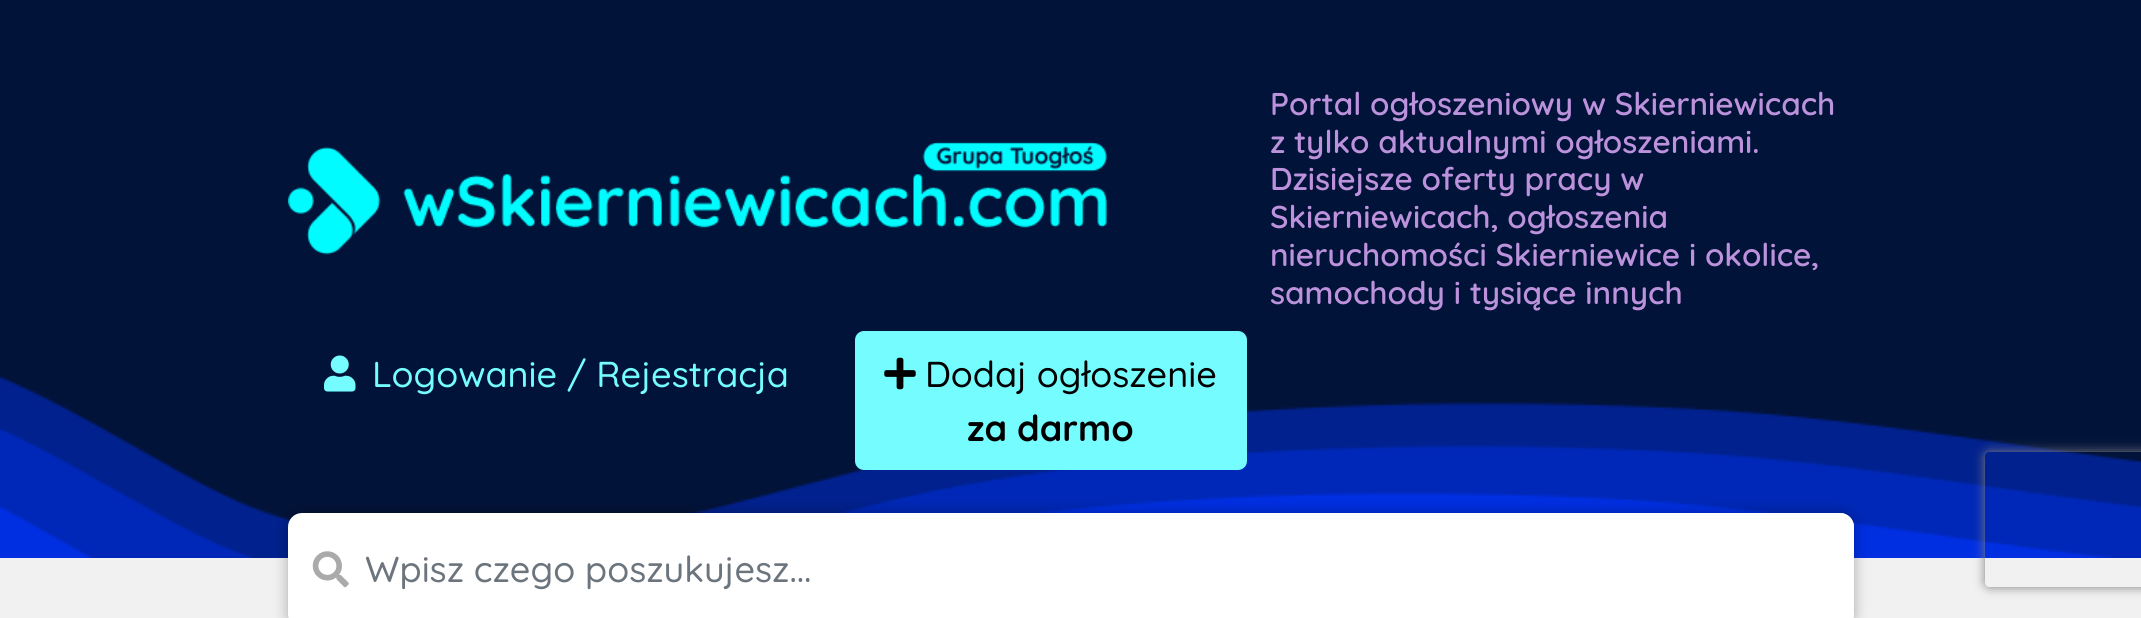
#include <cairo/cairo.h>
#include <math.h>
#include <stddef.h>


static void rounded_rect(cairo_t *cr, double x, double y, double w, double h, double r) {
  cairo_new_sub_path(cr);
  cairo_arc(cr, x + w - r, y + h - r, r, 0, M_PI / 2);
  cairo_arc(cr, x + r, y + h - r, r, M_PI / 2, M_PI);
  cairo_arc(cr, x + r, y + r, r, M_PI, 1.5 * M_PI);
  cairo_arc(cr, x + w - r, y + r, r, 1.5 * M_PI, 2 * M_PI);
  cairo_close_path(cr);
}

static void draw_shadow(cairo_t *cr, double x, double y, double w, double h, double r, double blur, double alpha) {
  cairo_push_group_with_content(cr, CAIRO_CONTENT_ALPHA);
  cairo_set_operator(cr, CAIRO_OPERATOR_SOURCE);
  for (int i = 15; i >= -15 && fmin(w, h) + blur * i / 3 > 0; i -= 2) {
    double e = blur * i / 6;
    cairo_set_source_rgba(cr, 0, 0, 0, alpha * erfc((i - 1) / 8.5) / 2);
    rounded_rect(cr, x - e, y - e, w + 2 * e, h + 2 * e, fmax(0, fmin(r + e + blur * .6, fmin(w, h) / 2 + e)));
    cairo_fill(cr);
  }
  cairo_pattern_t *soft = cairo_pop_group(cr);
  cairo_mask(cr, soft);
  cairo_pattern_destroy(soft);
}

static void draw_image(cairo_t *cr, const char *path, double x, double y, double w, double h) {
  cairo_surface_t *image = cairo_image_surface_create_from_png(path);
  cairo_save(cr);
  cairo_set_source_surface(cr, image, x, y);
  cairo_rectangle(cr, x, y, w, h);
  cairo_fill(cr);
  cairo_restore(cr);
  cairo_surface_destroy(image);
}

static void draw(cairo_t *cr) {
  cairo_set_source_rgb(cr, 241 / 255.0, 241 / 255.0, 241 / 255.0);
  cairo_paint(cr);
  cairo_set_source_rgb(cr, 2 / 255.0, 19 / 255.0, 57 / 255.0);
  cairo_rectangle(cr, 0, 0, 2141, 375);
  cairo_fill(cr);
  draw_image(cr, "images/1.png", 0, 375, 2141, 183);
  draw_image(cr, "images/2.png", 288, 141, 819, 114);
  draw_image(cr, "images/3.png", 324, 355, 32, 37);
  cairo_set_source_rgb(cr, 116 / 255.0, 252 / 255.0, 1);
  rounded_rect(cr, 856, 332, 390, 137, 8);
  cairo_fill_preserve(cr);
  cairo_stroke(cr);
  draw_image(cr, "images/4.png", 884, 357, 32, 33);
  cairo_set_source_rgb(cr, 0, 0, 0);
  draw_shadow(cr, 288, 513, 1566, 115, 14, 7, 0.3);
  cairo_set_source_rgb(cr, 1, 1, 1);
  rounded_rect(cr, 288, 513, 1566, 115, 14);
  cairo_fill(cr);
  draw_image(cr, "images/5.png", 312, 551, 37, 37);
  rounded_rect(cr, 365, 513, 1489, 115, 14);
  cairo_fill(cr);
  cairo_save(cr);
  cairo_set_fill_rule(cr, CAIRO_FILL_RULE_EVEN_ODD);
  cairo_new_path(cr);
  cairo_move_to(cr, 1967, 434);
  cairo_line_to(cr, 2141, 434);
  cairo_line_to(cr, 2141, 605);
  cairo_line_to(cr, 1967, 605);
  cairo_close_path(cr);
  cairo_move_to(cr, 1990, 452);
  cairo_line_to(cr, 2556, 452);
  cairo_curve_to(cr, 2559, 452, 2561, 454, 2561, 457);
  cairo_line_to(cr, 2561, 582);
  cairo_curve_to(cr, 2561, 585, 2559, 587, 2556, 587);
  cairo_line_to(cr, 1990, 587);
  cairo_curve_to(cr, 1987, 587, 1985, 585, 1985, 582);
  cairo_line_to(cr, 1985, 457);
  cairo_curve_to(cr, 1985, 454, 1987, 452, 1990, 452);
  cairo_close_path(cr);
  cairo_clip(cr);
  cairo_set_source_rgb(cr, 128 / 255.0, 128 / 255.0, 128 / 255.0);
  draw_shadow(cr, 1985, 452, 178, 135, 5, 5.5, 1);
  cairo_restore(cr);
  cairo_select_font_face(cr, "Quicksand SemiBold", CAIRO_FONT_SLANT_NORMAL, CAIRO_FONT_WEIGHT_NORMAL);
  cairo_set_font_size(cr, 31.5);
  cairo_set_source_rgb(cr, 189 / 255.0, 146 / 255.0, 220 / 255.0);
  cairo_move_to(cr, 1270, 115);
  cairo_show_text(cr, "Portal ogłoszeniowy w Skierniewicach");
  cairo_move_to(cr, 1270, 153);
  cairo_show_text(cr, "z tylko aktualnymi ogłoszeniami.");
  cairo_move_to(cr, 1270, 190);
  cairo_show_text(cr, "Dzisiejsze oferty pracy w");
  cairo_move_to(cr, 1270, 228);
  cairo_show_text(cr, "Skierniewicach, ogłoszenia");
  cairo_move_to(cr, 1270, 266);
  cairo_show_text(cr, "nieruchomości Skierniewice i okolice,");
  cairo_move_to(cr, 1270, 304);
  cairo_show_text(cr, "samochody i tysiące innych");
  cairo_select_font_face(cr, "Quicksand Medium", CAIRO_FONT_SLANT_NORMAL, CAIRO_FONT_WEIGHT_NORMAL);
  cairo_set_font_size(cr, 36);
  cairo_set_source_rgb(cr, 116 / 255.0, 252 / 255.0, 1);
  cairo_move_to(cr, 372, 387);
  cairo_show_text(cr, "Logowanie / Rejestracja");
  cairo_set_source_rgb(cr, 0, 0, 0);
  cairo_move_to(cr, 925, 387);
  cairo_show_text(cr, "Dodaj ogłoszenie");
  cairo_select_font_face(cr, "Quicksand", CAIRO_FONT_SLANT_NORMAL, CAIRO_FONT_WEIGHT_BOLD);
  cairo_move_to(cr, 967, 441);
  cairo_show_text(cr, "za darmo");
  cairo_select_font_face(cr, "Quicksand Medium", CAIRO_FONT_SLANT_NORMAL, CAIRO_FONT_WEIGHT_NORMAL);
  cairo_set_source_rgb(cr, 108 / 255.0, 117 / 255.0, 125 / 255.0);
  cairo_move_to(cr, 365, 582);
  cairo_show_text(cr, "Wpisz czego poszukujesz...");
}

int main(void) {
  cairo_surface_t *surface = cairo_image_surface_create(CAIRO_FORMAT_RGB24, 2141, 618);
  cairo_t *cr = cairo_create(surface);
  cairo_font_options_t *options = cairo_font_options_create();
  cairo_font_options_set_hint_metrics(options, CAIRO_HINT_METRICS_OFF);
  cairo_font_options_set_hint_style(options, CAIRO_HINT_STYLE_NONE);
  cairo_set_font_options(cr, options);
  cairo_set_miter_limit(cr, 4);
  draw(cr);
  cairo_surface_write_to_png(surface, "out.png");
  cairo_font_options_destroy(options);
  cairo_destroy(cr);
  cairo_surface_destroy(surface);
  return 0;
}
